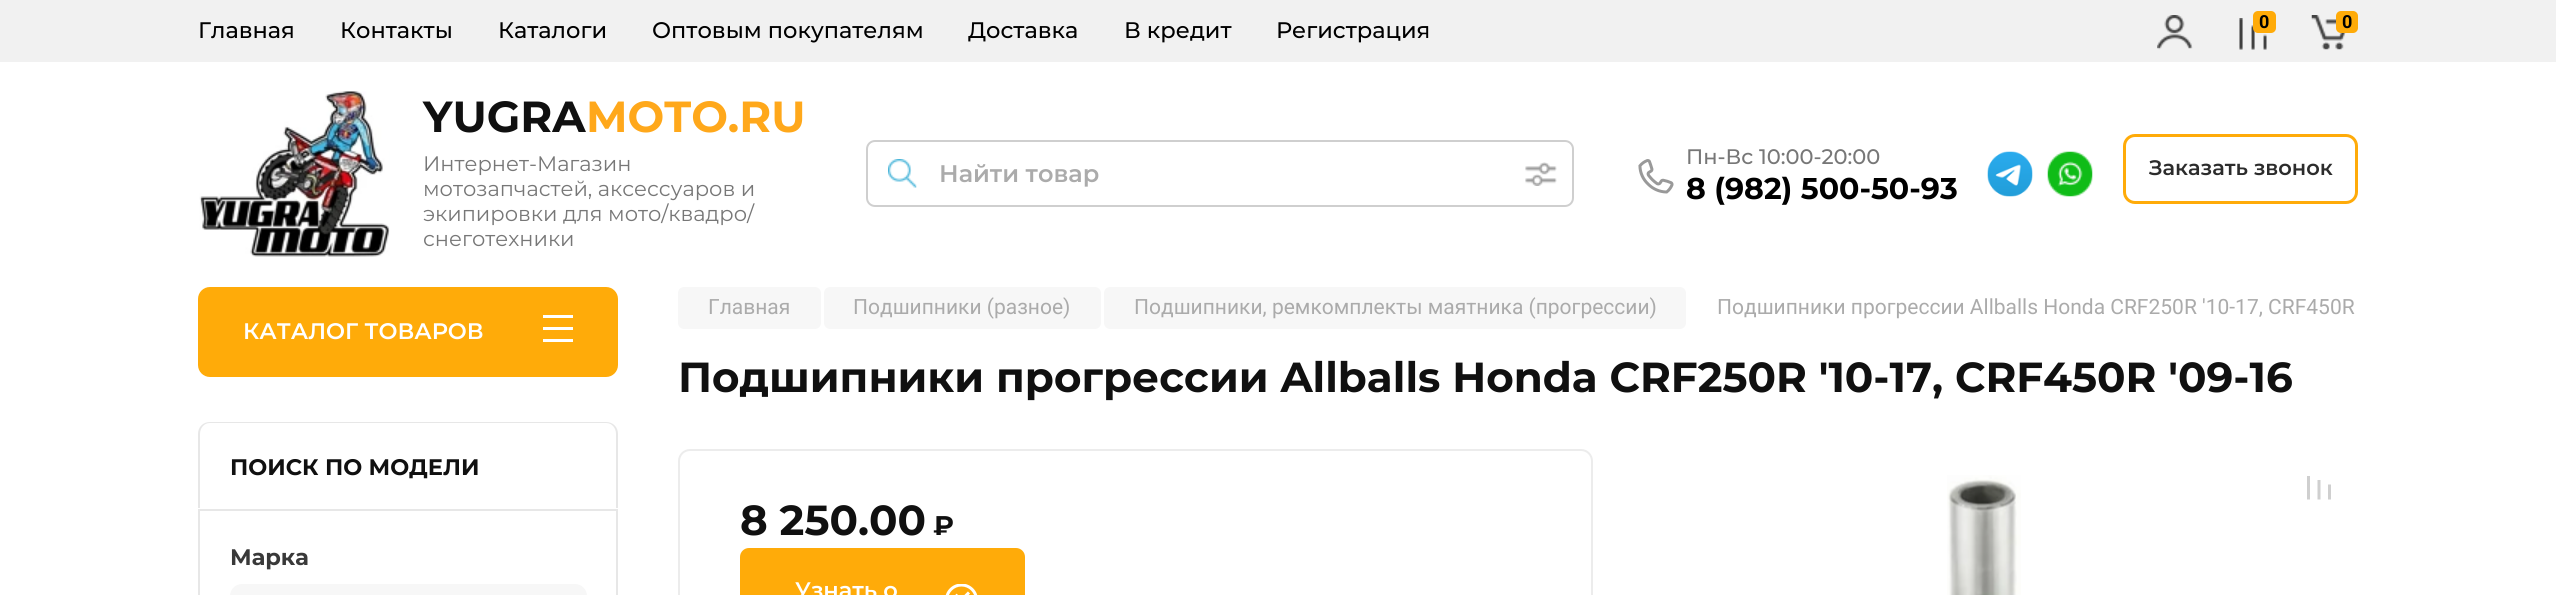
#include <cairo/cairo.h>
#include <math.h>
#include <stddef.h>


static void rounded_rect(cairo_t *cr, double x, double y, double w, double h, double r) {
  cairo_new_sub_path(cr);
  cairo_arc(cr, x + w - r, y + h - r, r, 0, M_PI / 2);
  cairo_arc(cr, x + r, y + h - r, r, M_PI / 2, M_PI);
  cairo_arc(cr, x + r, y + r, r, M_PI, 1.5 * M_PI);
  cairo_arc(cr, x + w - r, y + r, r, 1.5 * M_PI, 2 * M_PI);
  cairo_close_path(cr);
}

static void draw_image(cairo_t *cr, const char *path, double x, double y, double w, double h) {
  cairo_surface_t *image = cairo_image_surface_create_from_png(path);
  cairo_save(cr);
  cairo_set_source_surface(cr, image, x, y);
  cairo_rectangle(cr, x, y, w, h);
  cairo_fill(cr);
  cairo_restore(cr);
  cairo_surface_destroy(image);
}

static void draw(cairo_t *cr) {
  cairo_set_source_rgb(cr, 1, 1, 1);
  cairo_paint(cr);
  cairo_set_source_rgb(cr, 241 / 255.0, 241 / 255.0, 241 / 255.0);
  cairo_rectangle(cr, 0, 0, 2556, 62);
  cairo_fill(cr);
  draw_image(cr, "images/1.png", 2157, 15, 36, 35);
  draw_image(cr, "images/2.png", 2239, 18, 28, 32);
  cairo_set_source_rgb(cr, 1, 171 / 255.0, 9 / 255.0);
  rounded_rect(cr, 2253, 11, 23, 22, 5);
  cairo_fill(cr);
  draw_image(cr, "images/3.png", 2311, 15, 35, 35);
  rounded_rect(cr, 2336, 11, 22, 22, 5);
  cairo_fill(cr);
  draw_image(cr, "images/4.png", 199, 91, 191, 166);
  rounded_rect(cr, 867, 141, 706, 65, 8);
  cairo_set_source_rgb(cr, 207 / 255.0, 207 / 255.0, 207 / 255.0);
  cairo_stroke(cr);
  draw_image(cr, "images/5.png", 888, 159, 29, 29);
  draw_image(cr, "images/6.png", 1525, 162, 32, 24);
  draw_image(cr, "images/7.png", 1638, 159, 36, 35);
  draw_image(cr, "images/8.png", 1987, 151, 46, 46);
  draw_image(cr, "images/9.png", 2047, 151, 46, 46);
  rounded_rect(cr, 2124.5, 135.5, 232, 67, 10.5);
  cairo_set_source_rgb(cr, 1, 171 / 255.0, 9 / 255.0);
  cairo_set_line_width(cr, 3);
  cairo_stroke(cr);
  rounded_rect(cr, 198, 287, 420, 90, 12);
  cairo_fill(cr);
  draw_image(cr, "images/10.png", 543, 315, 30, 27);
  cairo_set_source_rgb(cr, 231 / 255.0, 231 / 255.0, 231 / 255.0);
  cairo_set_fill_rule(cr, CAIRO_FILL_RULE_EVEN_ODD);
  cairo_new_path(cr);
  cairo_move_to(cr, 210, 422);
  cairo_line_to(cr, 606, 422);
  cairo_curve_to(cr, 613, 422, 618, 427, 618, 434);
  cairo_line_to(cr, 618, 508);
  cairo_line_to(cr, 198, 508);
  cairo_line_to(cr, 198, 434);
  cairo_curve_to(cr, 198, 427, 203, 422, 210, 422);
  cairo_close_path(cr);
  cairo_move_to(cr, 210, 423);
  cairo_line_to(cr, 606, 423);
  cairo_curve_to(cr, 612, 423, 616, 428, 616, 434);
  cairo_line_to(cr, 616, 508);
  cairo_line_to(cr, 200, 508);
  cairo_line_to(cr, 200, 434);
  cairo_curve_to(cr, 200, 428, 204, 423, 210, 423);
  cairo_close_path(cr);
  cairo_fill(cr);
  cairo_rectangle(cr, 199, 510, 418, 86);
  cairo_set_line_width(cr, 2);
  cairo_stroke(cr);
  cairo_set_source_rgb(cr, 247 / 255.0, 247 / 255.0, 247 / 255.0);
  rounded_rect(cr, 230, 584, 357, 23, 12);
  cairo_fill(cr);
  rounded_rect(cr, 678, 287, 143, 42, 6);
  cairo_fill(cr);
  rounded_rect(cr, 824, 287, 277, 42, 6);
  cairo_fill(cr);
  rounded_rect(cr, 1104, 287, 582, 42, 6);
  cairo_fill(cr);
  rounded_rect(cr, 679, 450, 913, 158, 11);
  cairo_set_source_rgb(cr, 236 / 255.0, 236 / 255.0, 236 / 255.0);
  cairo_stroke(cr);
  cairo_set_source_rgb(cr, 1, 171 / 255.0, 9 / 255.0);
  rounded_rect(cr, 740, 548, 285, 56, 9);
  cairo_fill(cr);
  draw_image(cr, "images/11.png", 945, 584, 33, 11);
  draw_image(cr, "images/12.png", 1947, 475, 74, 120);
  draw_image(cr, "images/13.png", 2307, 476, 24, 24);
  cairo_select_font_face(cr, "Montserrat Medium", CAIRO_FONT_SLANT_NORMAL, CAIRO_FONT_WEIGHT_NORMAL);
  cairo_set_font_size(cr, 22.5);
  cairo_set_source_rgb(cr, 0, 0, 0);
  cairo_move_to(cr, 198, 38);
  cairo_show_text(cr, "Главная");
  cairo_move_to(cr, 340, 38);
  cairo_show_text(cr, "Контакты");
  cairo_move_to(cr, 498, 38);
  cairo_show_text(cr, "Каталоги");
  cairo_move_to(cr, 652, 38);
  cairo_show_text(cr, "Оптовым покупателям");
  cairo_move_to(cr, 968, 38);
  cairo_show_text(cr, "Доставка");
  cairo_move_to(cr, 1124, 38);
  cairo_show_text(cr, "В кредит");
  cairo_move_to(cr, 1276, 38);
  cairo_show_text(cr, "Регистрация");
  cairo_select_font_face(cr, "Roboto", CAIRO_FONT_SLANT_NORMAL, CAIRO_FONT_WEIGHT_BOLD);
  cairo_set_font_size(cr, 18);
  cairo_move_to(cr, 2259, 28);
  cairo_show_text(cr, "0");
  cairo_move_to(cr, 2342, 28);
  cairo_show_text(cr, "0");
  cairo_select_font_face(cr, "Montserrat", CAIRO_FONT_SLANT_NORMAL, CAIRO_FONT_WEIGHT_BOLD);
  cairo_set_font_size(cr, 43.5);
  cairo_set_source_rgb(cr, 16 / 255.0, 16 / 255.0, 16 / 255.0);
  cairo_move_to(cr, 423, 132);
  cairo_show_text(cr, "YUGRA");
  cairo_set_source_rgb(cr, 1, 168 / 255.0, 27 / 255.0);
  cairo_move_to(cr, 586, 132);
  cairo_show_text(cr, "MOTO.RU");
  cairo_select_font_face(cr, "Montserrat", CAIRO_FONT_SLANT_NORMAL, CAIRO_FONT_WEIGHT_NORMAL);
  cairo_set_font_size(cr, 21);
  cairo_set_source_rgb(cr, 119 / 255.0, 119 / 255.0, 119 / 255.0);
  cairo_move_to(cr, 423, 171);
  cairo_show_text(cr, "Интернет-Магазин");
  cairo_move_to(cr, 423, 196);
  cairo_show_text(cr, "мотозапчастей, аксессуаров и");
  cairo_move_to(cr, 423, 221);
  cairo_show_text(cr, "экипировки для мото/квадро/");
  cairo_move_to(cr, 423, 246);
  cairo_show_text(cr, "снеготехники");
  cairo_select_font_face(cr, "Montserrat SemiBold", CAIRO_FONT_SLANT_NORMAL, CAIRO_FONT_WEIGHT_NORMAL);
  cairo_set_font_size(cr, 24);
  cairo_set_source_rgb(cr, 171 / 255.0, 171 / 255.0, 171 / 255.0);
  cairo_move_to(cr, 939, 182);
  cairo_show_text(cr, "Найти товар");
  cairo_select_font_face(cr, "Montserrat Medium", CAIRO_FONT_SLANT_NORMAL, CAIRO_FONT_WEIGHT_NORMAL);
  cairo_set_font_size(cr, 21);
  cairo_set_source_rgb(cr, 119 / 255.0, 119 / 255.0, 119 / 255.0);
  cairo_move_to(cr, 1686, 164);
  cairo_show_text(cr, "Пн-Вс 10:00-20:00");
  cairo_select_font_face(cr, "Montserrat", CAIRO_FONT_SLANT_NORMAL, CAIRO_FONT_WEIGHT_BOLD);
  cairo_set_font_size(cr, 30);
  cairo_set_source_rgb(cr, 0, 0, 0);
  cairo_move_to(cr, 1686, 199);
  cairo_show_text(cr, "8 (982) 500-50-93");
  cairo_select_font_face(cr, "Montserrat SemiBold", CAIRO_FONT_SLANT_NORMAL, CAIRO_FONT_WEIGHT_NORMAL);
  cairo_set_font_size(cr, 21);
  cairo_set_source_rgb(cr, 44 / 255.0, 44 / 255.0, 44 / 255.0);
  cairo_move_to(cr, 2149, 175);
  cairo_show_text(cr, "Заказать звонок");
  cairo_set_font_size(cr, 22.5);
  cairo_set_source_rgb(cr, 1, 1, 1);
  cairo_move_to(cr, 243, 339);
  cairo_show_text(cr, "КАТАЛОГ ТОВАРОВ");
  cairo_select_font_face(cr, "Montserrat", CAIRO_FONT_SLANT_NORMAL, CAIRO_FONT_WEIGHT_BOLD);
  cairo_set_source_rgb(cr, 16 / 255.0, 16 / 255.0, 16 / 255.0);
  cairo_move_to(cr, 230, 475);
  cairo_show_text(cr, "ПОИСК ПО МОДЕЛИ");
  cairo_set_source_rgb(cr, 57 / 255.0, 57 / 255.0, 57 / 255.0);
  cairo_move_to(cr, 230, 565);
  cairo_show_text(cr, "Марка");
  cairo_select_font_face(cr, "Roboto", CAIRO_FONT_SLANT_NORMAL, CAIRO_FONT_WEIGHT_NORMAL);
  cairo_set_font_size(cr, 21);
  cairo_set_source_rgb(cr, 171 / 255.0, 171 / 255.0, 171 / 255.0);
  cairo_move_to(cr, 708, 314);
  cairo_show_text(cr, "Главная");
  cairo_move_to(cr, 853, 314);
  cairo_show_text(cr, "Подшипники (разное)");
  cairo_move_to(cr, 1134, 314);
  cairo_show_text(cr, "Подшипники, ремкомплекты маятника (прогрессии)");
  cairo_move_to(cr, 1717, 314);
  cairo_show_text(cr, "Подшипники прогрессии Allballs Honda CRF250R '10-17, CRF450R");
  cairo_select_font_face(cr, "Montserrat", CAIRO_FONT_SLANT_NORMAL, CAIRO_FONT_WEIGHT_BOLD);
  cairo_set_font_size(cr, 42);
  cairo_set_source_rgb(cr, 16 / 255.0, 16 / 255.0, 16 / 255.0);
  cairo_move_to(cr, 678, 392);
  cairo_show_text(cr, "Подшипники прогрессии Allballs Honda CRF250R '10-17, CRF450R '09-16");
  cairo_move_to(cr, 740, 535);
  cairo_show_text(cr, "8 250.00");
  cairo_set_font_size(cr, 27);
  cairo_move_to(cr, 933, 535);
  cairo_show_text(cr, "₽");
  cairo_select_font_face(cr, "Montserrat SemiBold", CAIRO_FONT_SLANT_NORMAL, CAIRO_FONT_WEIGHT_NORMAL);
  cairo_set_font_size(cr, 22.5);
  cairo_set_source_rgb(cr, 1, 1, 1);
  cairo_move_to(cr, 795, 598);
  cairo_show_text(cr, "Узнать о");
}

int main(void) {
  cairo_surface_t *surface = cairo_image_surface_create(CAIRO_FORMAT_RGB24, 2556, 595);
  cairo_t *cr = cairo_create(surface);
  cairo_font_options_t *options = cairo_font_options_create();
  cairo_font_options_set_hint_metrics(options, CAIRO_HINT_METRICS_OFF);
  cairo_font_options_set_hint_style(options, CAIRO_HINT_STYLE_NONE);
  cairo_set_font_options(cr, options);
  cairo_set_miter_limit(cr, 4);
  draw(cr);
  cairo_surface_write_to_png(surface, "out.png");
  cairo_font_options_destroy(options);
  cairo_destroy(cr);
  cairo_surface_destroy(surface);
  return 0;
}
